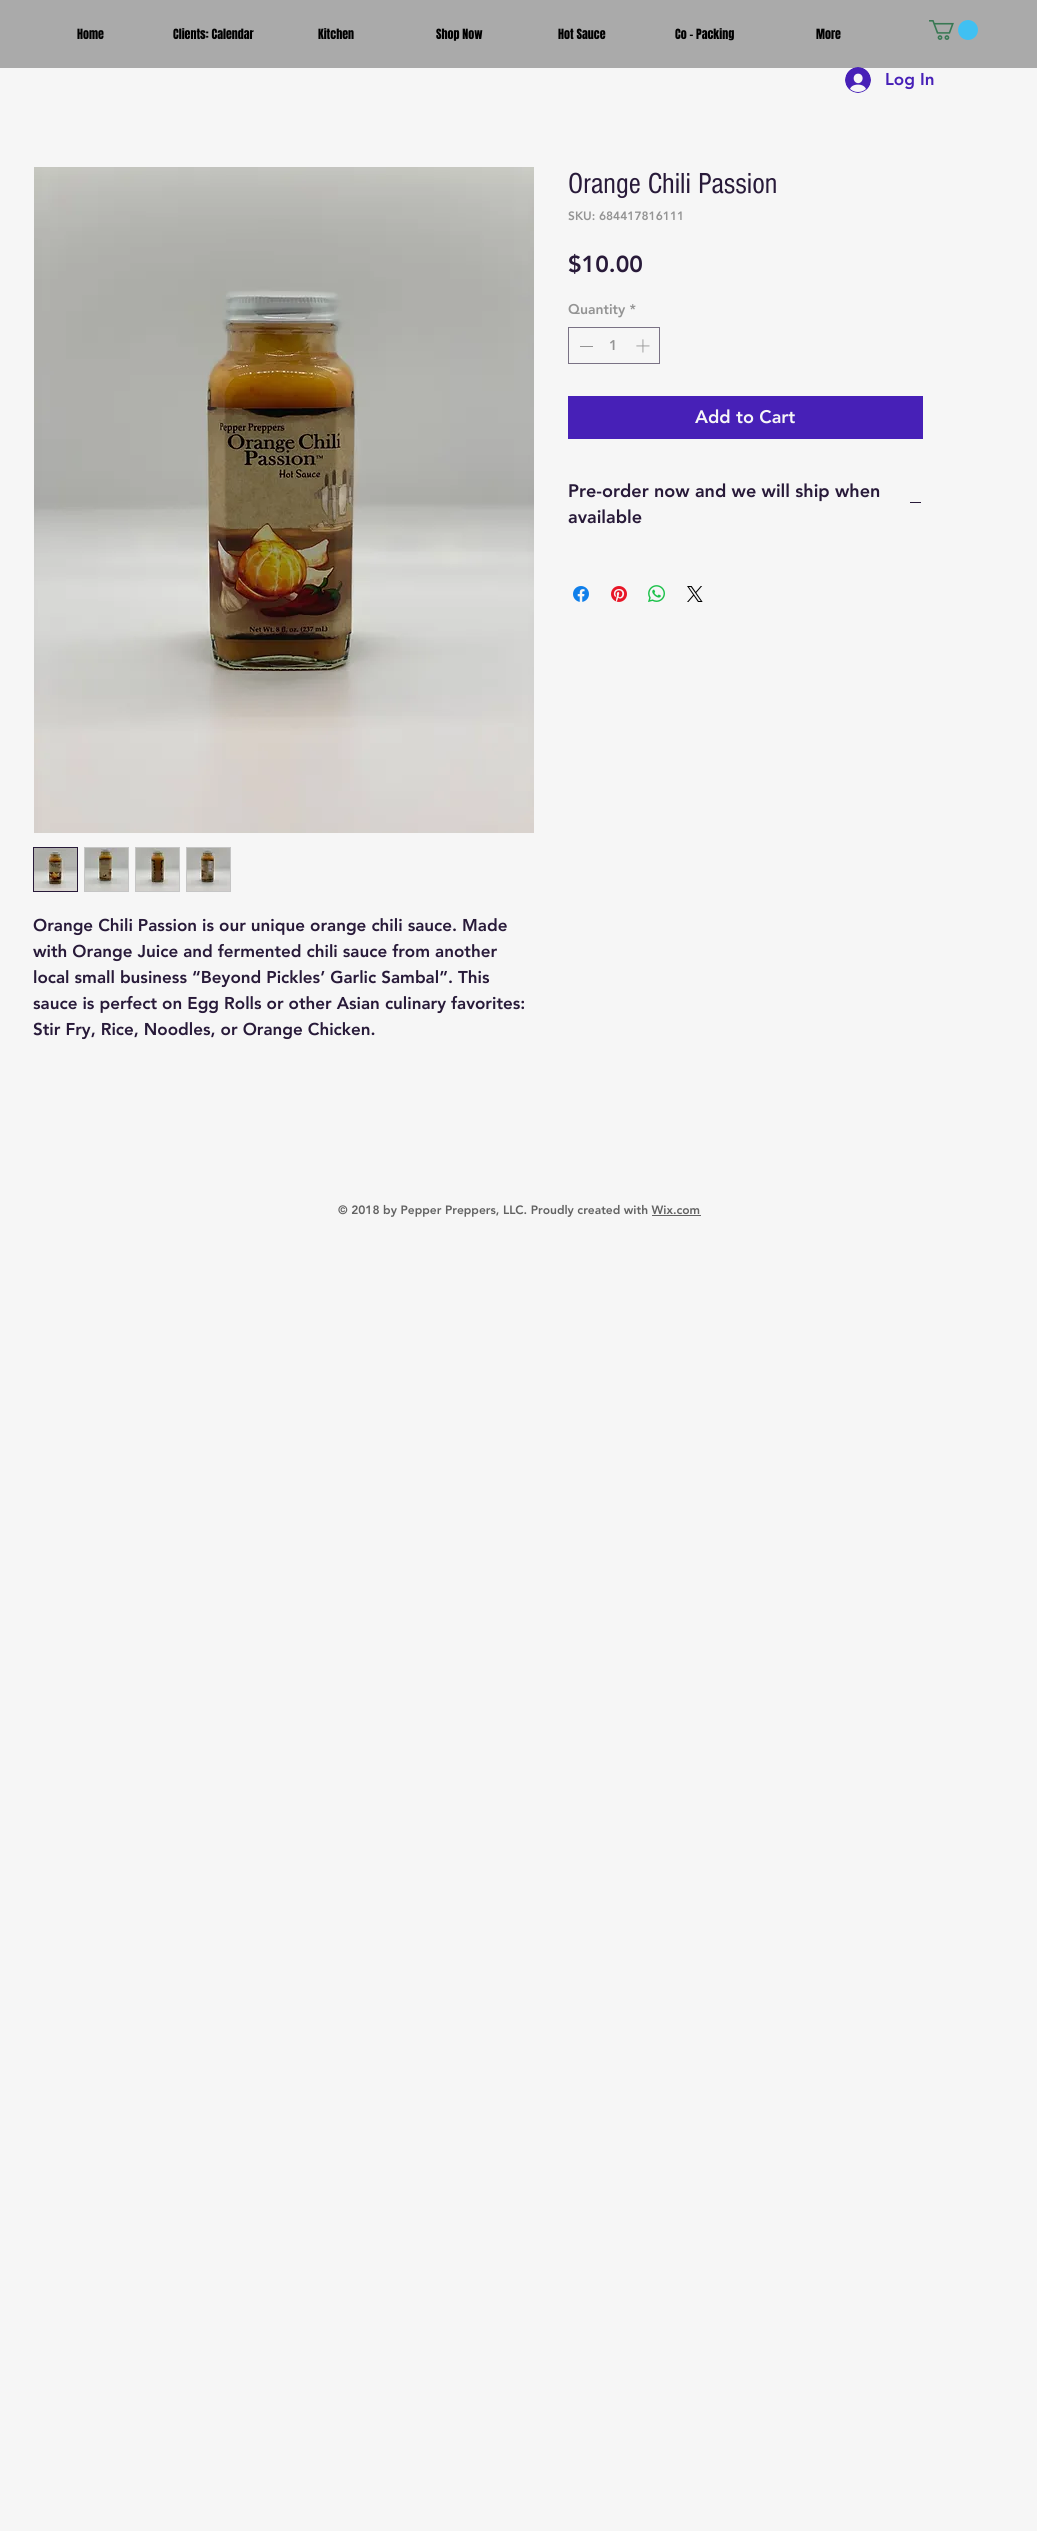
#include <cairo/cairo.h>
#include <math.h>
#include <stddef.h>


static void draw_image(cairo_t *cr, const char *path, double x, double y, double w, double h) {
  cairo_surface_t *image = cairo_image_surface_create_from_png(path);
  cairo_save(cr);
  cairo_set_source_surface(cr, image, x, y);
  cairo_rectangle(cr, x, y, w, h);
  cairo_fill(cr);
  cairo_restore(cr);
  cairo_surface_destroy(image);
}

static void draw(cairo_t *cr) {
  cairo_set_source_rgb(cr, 246 / 255.0, 246 / 255.0, 246 / 255.0);
  cairo_paint(cr);
  cairo_set_source_rgb(cr, 170 / 255.0, 170 / 255.0, 170 / 255.0);
  cairo_rectangle(cr, 0, 0, 1037, 68);
  cairo_fill(cr);
  draw_image(cr, "images/1.png", 929, 20, 49, 20);
  draw_image(cr, "images/2.png", 845, 67, 26, 26);
  cairo_rectangle(cr, 568.5, 327.5, 91, 36);
  cairo_set_source_rgb(cr, 122 / 255.0, 114 / 255.0, 133 / 255.0);
  cairo_set_line_width(cr, 1);
  cairo_stroke(cr);
  cairo_set_source_rgb(cr, 148 / 255.0, 148 / 255.0, 148 / 255.0);
  cairo_rectangle(cr, 580, 346, 13, 1);
  cairo_fill(cr);
  draw_image(cr, "images/3.png", 636, 339, 14, 14);
  cairo_set_source_rgb(cr, 71 / 255.0, 32 / 255.0, 183 / 255.0);
  cairo_rectangle(cr, 568, 396, 355, 43);
  cairo_fill(cr);
  cairo_set_source_rgb(cr, 40 / 255.0, 26 / 255.0, 57 / 255.0);
  cairo_rectangle(cr, 910, 502, 11, 1);
  cairo_fill(cr);
  draw_image(cr, "images/4.png", 573, 586, 16, 16);
  draw_image(cr, "images/5.png", 611, 586, 16, 16);
  draw_image(cr, "images/6.png", 648, 585, 17, 17);
  draw_image(cr, "images/7.png", 687, 586, 16, 16);
  draw_image(cr, "images/8.png", 34, 167, 500, 666);
  cairo_rectangle(cr, 33.5, 847.5, 44, 44);
  cairo_stroke(cr);
  draw_image(cr, "images/9.png", 34, 848, 43, 43);
  cairo_set_source_rgb(cr, 197 / 255.0, 197 / 255.0, 197 / 255.0);
  cairo_rectangle(cr, 84, 847, 45, 45);
  cairo_fill(cr);
  draw_image(cr, "images/10.png", 85, 848, 43, 43);
  cairo_rectangle(cr, 135, 847, 45, 45);
  cairo_fill(cr);
  draw_image(cr, "images/11.png", 136, 848, 43, 43);
  cairo_rectangle(cr, 186, 847, 45, 45);
  cairo_fill(cr);
  draw_image(cr, "images/12.png", 187, 848, 43, 43);
  cairo_set_source_rgb(cr, 98 / 255.0, 98 / 255.0, 98 / 255.0);
  cairo_rectangle(cr, 652, 1215, 49, 1);
  cairo_fill(cr);
  cairo_select_font_face(cr, "Anton", CAIRO_FONT_SLANT_NORMAL, CAIRO_FONT_WEIGHT_NORMAL);
  cairo_set_font_size(cr, 12);
  cairo_set_source_rgb(cr, 0, 0, 0);
  cairo_move_to(cr, 77, 39);
  cairo_show_text(cr, "Home");
  cairo_move_to(cr, 173, 39);
  cairo_show_text(cr, "Clients: Calendar");
  cairo_move_to(cr, 318, 39);
  cairo_show_text(cr, "Kitchen");
  cairo_move_to(cr, 436, 39);
  cairo_show_text(cr, "Shop Now");
  cairo_move_to(cr, 558, 39);
  cairo_show_text(cr, "Hot Sauce");
  cairo_move_to(cr, 675, 39);
  cairo_show_text(cr, "Co - Packing");
  cairo_move_to(cr, 816, 39);
  cairo_show_text(cr, "More");
  cairo_select_font_face(cr, "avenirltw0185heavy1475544 Black", CAIRO_FONT_SLANT_NORMAL, CAIRO_FONT_WEIGHT_NORMAL);
  cairo_set_font_size(cr, 17);
  cairo_set_source_rgb(cr, 71 / 255.0, 32 / 255.0, 183 / 255.0);
  cairo_move_to(cr, 885, 85);
  cairo_show_text(cr, "Log In");
  cairo_select_font_face(cr, "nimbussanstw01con", CAIRO_FONT_SLANT_NORMAL, CAIRO_FONT_WEIGHT_NORMAL);
  cairo_set_font_size(cr, 30);
  cairo_set_source_rgb(cr, 40 / 255.0, 26 / 255.0, 57 / 255.0);
  cairo_move_to(cr, 568, 193);
  cairo_show_text(cr, "Orange Chili Passion");
  cairo_select_font_face(cr, "avenirltw0185heavy1475544 Black", CAIRO_FONT_SLANT_NORMAL, CAIRO_FONT_WEIGHT_NORMAL);
  cairo_set_font_size(cr, 12);
  cairo_set_source_rgb(cr, 148 / 255.0, 148 / 255.0, 148 / 255.0);
  cairo_move_to(cr, 568, 220);
  cairo_show_text(cr, "SKU: 684417816111");
  cairo_set_font_size(cr, 23);
  cairo_set_source_rgb(cr, 40 / 255.0, 26 / 255.0, 57 / 255.0);
  cairo_move_to(cr, 568, 272);
  cairo_show_text(cr, "$10.00");
  cairo_set_font_size(cr, 14);
  cairo_set_source_rgb(cr, 148 / 255.0, 148 / 255.0, 148 / 255.0);
  cairo_move_to(cr, 568, 314);
  cairo_show_text(cr, "Quantity *");
  cairo_move_to(cr, 609, 350);
  cairo_show_text(cr, "1");
  cairo_set_font_size(cr, 18);
  cairo_set_source_rgb(cr, 246 / 255.0, 246 / 255.0, 246 / 255.0);
  cairo_move_to(cr, 695, 423);
  cairo_show_text(cr, "Add to Cart");
  cairo_set_source_rgb(cr, 40 / 255.0, 26 / 255.0, 57 / 255.0);
  cairo_move_to(cr, 568, 497);
  cairo_show_text(cr, "Pre-order now and we will ship when");
  cairo_move_to(cr, 568, 523);
  cairo_show_text(cr, "available");
  cairo_set_font_size(cr, 17);
  cairo_move_to(cr, 33, 931);
  cairo_show_text(cr, "Orange Chili Passion is our unique orange chili sauce. Made");
  cairo_move_to(cr, 33, 957);
  cairo_show_text(cr, "with Orange Juice and fermented chili sauce from another");
  cairo_move_to(cr, 33, 983);
  cairo_show_text(cr, "local small business “Beyond Pickles’ Garlic Sambal”. This");
  cairo_move_to(cr, 33, 1009);
  cairo_show_text(cr, "sauce is perfect on Egg Rolls or other Asian culinary favorites:");
  cairo_move_to(cr, 33, 1035);
  cairo_show_text(cr, "Stir Fry, Rice, Noodles, or Orange Chicken.");
  cairo_set_font_size(cr, 12);
  cairo_set_source_rgb(cr, 98 / 255.0, 98 / 255.0, 98 / 255.0);
  cairo_move_to(cr, 338, 1214);
  cairo_show_text(cr, "© 2018 by Pepper Preppers, LLC. Proudly created with Wix.com");
}

int main(void) {
  cairo_surface_t *surface = cairo_image_surface_create(CAIRO_FORMAT_RGB24, 1037, 2531);
  cairo_t *cr = cairo_create(surface);
  cairo_font_options_t *options = cairo_font_options_create();
  cairo_font_options_set_hint_metrics(options, CAIRO_HINT_METRICS_OFF);
  cairo_font_options_set_hint_style(options, CAIRO_HINT_STYLE_NONE);
  cairo_set_font_options(cr, options);
  cairo_set_miter_limit(cr, 4);
  draw(cr);
  cairo_surface_write_to_png(surface, "out.png");
  cairo_font_options_destroy(options);
  cairo_destroy(cr);
  cairo_surface_destroy(surface);
  return 0;
}
